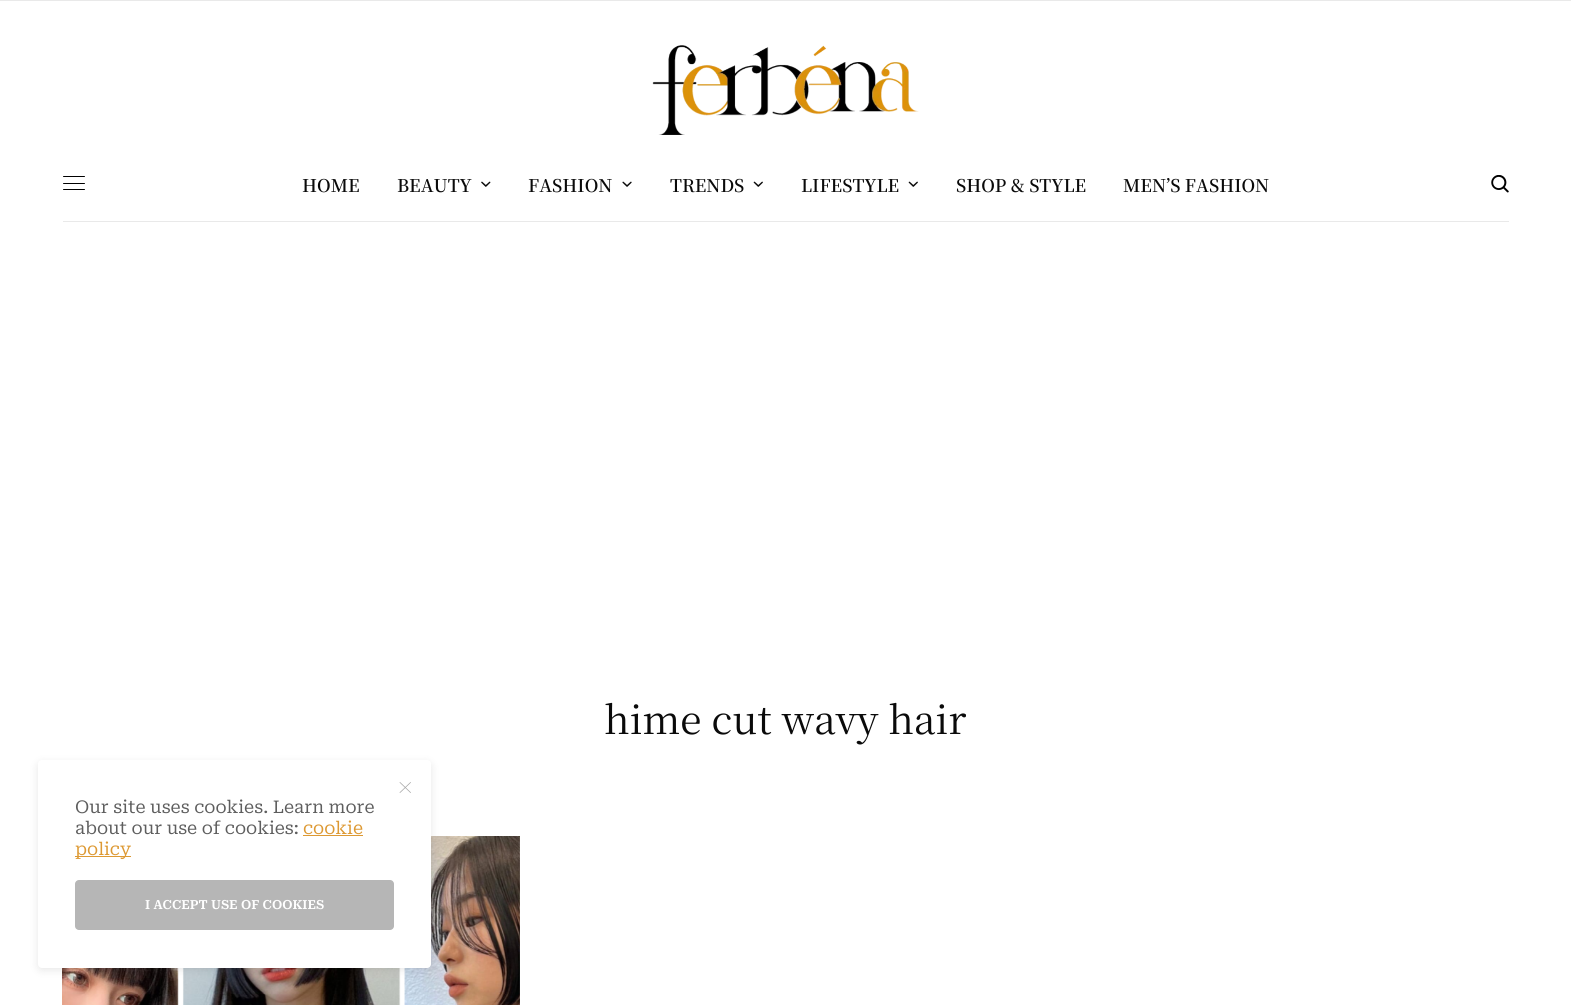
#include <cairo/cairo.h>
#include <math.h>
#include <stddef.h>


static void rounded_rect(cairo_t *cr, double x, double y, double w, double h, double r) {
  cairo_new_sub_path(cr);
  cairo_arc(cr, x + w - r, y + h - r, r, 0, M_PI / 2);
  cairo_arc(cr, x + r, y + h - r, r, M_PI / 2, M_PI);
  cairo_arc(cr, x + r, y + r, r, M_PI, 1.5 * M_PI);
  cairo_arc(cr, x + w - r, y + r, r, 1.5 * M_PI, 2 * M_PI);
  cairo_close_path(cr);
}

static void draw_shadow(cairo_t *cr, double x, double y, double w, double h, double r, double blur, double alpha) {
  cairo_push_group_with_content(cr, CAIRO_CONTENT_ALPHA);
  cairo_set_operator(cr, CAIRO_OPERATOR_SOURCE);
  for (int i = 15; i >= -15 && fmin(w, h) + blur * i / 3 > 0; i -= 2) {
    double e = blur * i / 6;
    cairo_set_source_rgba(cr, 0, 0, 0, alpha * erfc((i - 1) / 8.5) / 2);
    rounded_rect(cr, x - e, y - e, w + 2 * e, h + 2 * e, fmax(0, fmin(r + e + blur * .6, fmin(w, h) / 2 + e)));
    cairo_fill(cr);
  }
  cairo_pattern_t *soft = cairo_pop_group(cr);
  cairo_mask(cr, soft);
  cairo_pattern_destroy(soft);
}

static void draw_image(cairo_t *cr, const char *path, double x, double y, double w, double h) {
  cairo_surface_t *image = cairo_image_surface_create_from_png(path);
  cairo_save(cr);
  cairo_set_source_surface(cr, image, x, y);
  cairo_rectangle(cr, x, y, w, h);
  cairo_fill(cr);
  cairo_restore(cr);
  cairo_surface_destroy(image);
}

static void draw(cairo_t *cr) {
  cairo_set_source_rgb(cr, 1, 1, 1);
  cairo_paint(cr);
  cairo_set_source_rgb(cr, 233 / 255.0, 233 / 255.0, 233 / 255.0);
  cairo_rectangle(cr, 0, 0, 1571, 1);
  cairo_fill(cr);
  draw_image(cr, "images/1.png", 652, 45, 267, 90);
  cairo_rectangle(cr, 63, 221, 1446, 1);
  cairo_fill(cr);
  cairo_set_source_rgb(cr, 0, 0, 0);
  rounded_rect(cr, 63, 176, 22, 1, 0.5);
  cairo_fill(cr);
  rounded_rect(cr, 63, 183, 22, 1, 0.5);
  cairo_fill(cr);
  rounded_rect(cr, 63, 189, 22, 1, 0.5);
  cairo_fill(cr);
  draw_image(cr, "images/2.png", 481, 181, 10, 6);
  draw_image(cr, "images/3.png", 622, 181, 10, 6);
  draw_image(cr, "images/4.png", 753, 181, 10, 6);
  draw_image(cr, "images/4.png", 908, 181, 10, 6);
  draw_image(cr, "images/5.png", 1491, 175, 18, 18);
  draw_image(cr, "images/6.png", 62, 836, 458, 169);
  cairo_set_source_rgb(cr, 0, 0, 0);
  draw_shadow(cr, 38, 763, 393, 207, 4, 4.5, 0.1);
  cairo_set_source_rgb(cr, 1, 1, 1);
  rounded_rect(cr, 38, 760, 393, 208, 4);
  cairo_fill(cr);
  cairo_set_source_rgb(cr, 163 / 255.0, 163 / 255.0, 163 / 255.0);
  cairo_new_path(cr);
  cairo_move_to(cr, 400, 782);
  cairo_line_to(cr, 411, 792.5);
  cairo_line_to(cr, 410.5, 793);
  cairo_line_to(cr, 399.5, 782.5);
  cairo_close_path(cr);
  cairo_fill(cr);
  cairo_new_path(cr);
  cairo_move_to(cr, 399.5, 792.5);
  cairo_line_to(cr, 410.5, 782);
  cairo_line_to(cr, 411, 782.5);
  cairo_line_to(cr, 400, 793);
  cairo_close_path(cr);
  cairo_fill(cr);
  cairo_set_source_rgb(cr, 221 / 255.0, 153 / 255.0, 51 / 255.0);
  cairo_rectangle(cr, 303, 835, 60, 1);
  cairo_fill(cr);
  cairo_rectangle(cr, 75, 856, 56, 1);
  cairo_fill(cr);
  cairo_set_source_rgb(cr, 182 / 255.0, 182 / 255.0, 182 / 255.0);
  rounded_rect(cr, 75, 880, 319, 50, 4);
  cairo_fill(cr);
  cairo_select_font_face(cr, "Noto Serif KR SemiBold", CAIRO_FONT_SLANT_NORMAL, CAIRO_FONT_WEIGHT_NORMAL);
  cairo_set_font_size(cr, 17.5);
  cairo_set_source_rgb(cr, 10 / 255.0, 10 / 255.0, 10 / 255.0);
  cairo_move_to(cr, 302, 192);
  cairo_show_text(cr, "HOME");
  cairo_move_to(cr, 397, 192);
  cairo_show_text(cr, "BEAUTY");
  cairo_move_to(cr, 528, 192);
  cairo_show_text(cr, "FASHION");
  cairo_move_to(cr, 670, 192);
  cairo_show_text(cr, "TRENDS");
  cairo_move_to(cr, 801, 192);
  cairo_show_text(cr, "LIFESTYLE");
  cairo_move_to(cr, 956, 192);
  cairo_show_text(cr, "SHOP & STYLE");
  cairo_move_to(cr, 1123, 192);
  cairo_show_text(cr, "MEN’S FASHION");
  cairo_select_font_face(cr, "Noto Serif KR", CAIRO_FONT_SLANT_NORMAL, CAIRO_FONT_WEIGHT_NORMAL);
  cairo_set_font_size(cr, 38.75);
  cairo_move_to(cr, 604, 734);
  cairo_show_text(cr, "hime cut wavy hair");
  cairo_select_font_face(cr, "Roboto Serif", CAIRO_FONT_SLANT_NORMAL, CAIRO_FONT_WEIGHT_NORMAL);
  cairo_set_font_size(cr, 17.5);
  cairo_set_source_rgb(cr, 94 / 255.0, 94 / 255.0, 94 / 255.0);
  cairo_move_to(cr, 75, 813);
  cairo_show_text(cr, "Our site uses cookies. Learn more");
  cairo_move_to(cr, 75, 834);
  cairo_show_text(cr, "about our use of cookies:");
  cairo_set_source_rgb(cr, 221 / 255.0, 153 / 255.0, 51 / 255.0);
  cairo_move_to(cr, 303, 834);
  cairo_show_text(cr, "cookie");
  cairo_move_to(cr, 75, 855);
  cairo_show_text(cr, "policy");
  cairo_select_font_face(cr, "Roboto Serif SemiBold", CAIRO_FONT_SLANT_NORMAL, CAIRO_FONT_WEIGHT_NORMAL);
  cairo_set_font_size(cr, 12.5);
  cairo_set_source_rgb(cr, 1, 1, 1);
  cairo_move_to(cr, 145, 909);
  cairo_show_text(cr, "I ACCEPT USE OF COOKIES");
}

int main(void) {
  cairo_surface_t *surface = cairo_image_surface_create(CAIRO_FORMAT_RGB24, 1571, 1005);
  cairo_t *cr = cairo_create(surface);
  cairo_font_options_t *options = cairo_font_options_create();
  cairo_font_options_set_hint_metrics(options, CAIRO_HINT_METRICS_OFF);
  cairo_font_options_set_hint_style(options, CAIRO_HINT_STYLE_NONE);
  cairo_set_font_options(cr, options);
  cairo_set_miter_limit(cr, 4);
  draw(cr);
  cairo_surface_write_to_png(surface, "out.png");
  cairo_font_options_destroy(options);
  cairo_destroy(cr);
  cairo_surface_destroy(surface);
  return 0;
}
